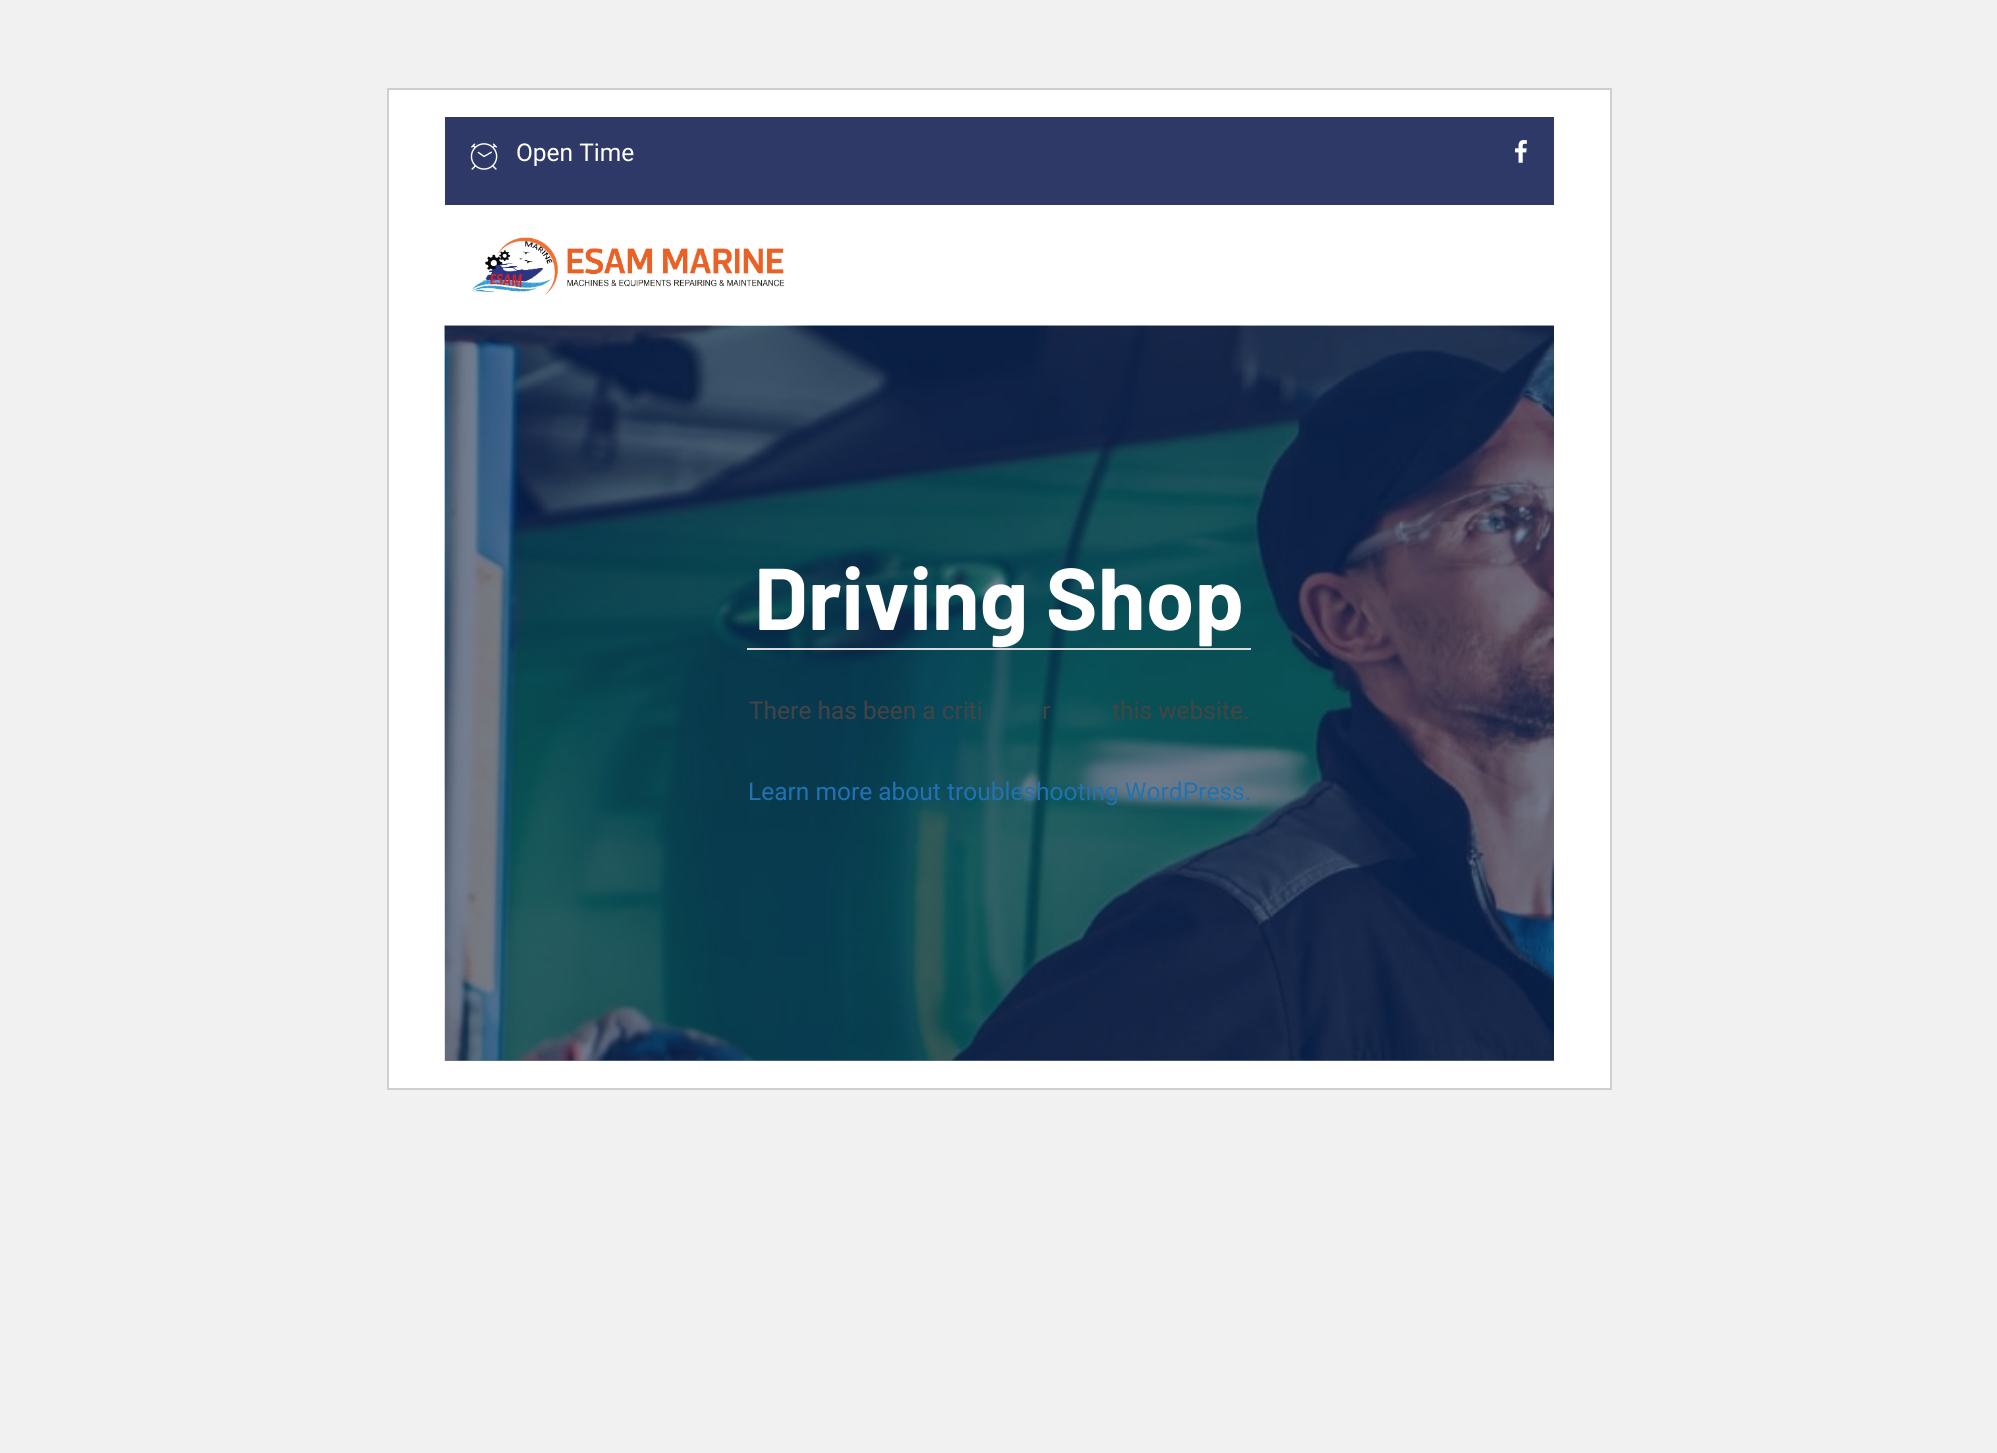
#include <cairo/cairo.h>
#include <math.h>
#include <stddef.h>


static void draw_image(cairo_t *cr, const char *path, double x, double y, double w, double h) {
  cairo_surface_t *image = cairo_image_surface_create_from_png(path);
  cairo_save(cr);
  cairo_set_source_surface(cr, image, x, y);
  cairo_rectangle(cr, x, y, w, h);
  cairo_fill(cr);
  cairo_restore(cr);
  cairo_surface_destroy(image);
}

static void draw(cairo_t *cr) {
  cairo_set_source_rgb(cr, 241 / 255.0, 241 / 255.0, 241 / 255.0);
  cairo_paint(cr);
  cairo_set_source_rgb(cr, 1, 1, 1);
  cairo_rectangle(cr, 389, 90, 1221, 998);
  cairo_fill(cr);
  cairo_set_source_rgb(cr, 120 / 255.0, 130 / 255.0, 153 / 255.0);
  cairo_rectangle(cr, 445, 1060, 1109, 1);
  cairo_fill(cr);
  cairo_rectangle(cr, 388, 89, 1223, 1000);
  cairo_set_source_rgb(cr, 204 / 255.0, 208 / 255.0, 212 / 255.0);
  cairo_stroke(cr);
  cairo_set_source_rgb(cr, 47 / 255.0, 57 / 255.0, 103 / 255.0);
  cairo_rectangle(cr, 445, 117, 1109, 88);
  cairo_fill(cr);
  draw_image(cr, "images/1.png", 470, 143, 28, 27);
  draw_image(cr, "images/2.png", 1515, 140, 12, 23);
  draw_image(cr, "images/3.png", 471, 237, 314, 58);
  draw_image(cr, "images/4.png", 444, 325, 1110, 736);
  cairo_set_source_rgb(cr, 218 / 255.0, 218 / 255.0, 218 / 255.0);
  cairo_rectangle(cr, 747, 648, 504, 2);
  cairo_fill(cr);
  cairo_select_font_face(cr, "Roboto", CAIRO_FONT_SLANT_NORMAL, CAIRO_FONT_WEIGHT_NORMAL);
  cairo_set_font_size(cr, 24.5);
  cairo_set_source_rgb(cr, 1, 1, 1);
  cairo_move_to(cr, 516, 161);
  cairo_show_text(cr, "Open Time");
  cairo_select_font_face(cr, "Barlow", CAIRO_FONT_SLANT_NORMAL, CAIRO_FONT_WEIGHT_BOLD);
  cairo_set_font_size(cr, 87.5);
  cairo_move_to(cr, 754, 630);
  cairo_show_text(cr, "Driving Shop");
  cairo_select_font_face(cr, "Roboto", CAIRO_FONT_SLANT_NORMAL, CAIRO_FONT_WEIGHT_NORMAL);
  cairo_set_font_size(cr, 24.5);
  cairo_set_source_rgb(cr, 68 / 255.0, 68 / 255.0, 68 / 255.0);
  cairo_move_to(cr, 749, 719);
  cairo_show_text(cr, "There has been a criti");
  cairo_move_to(cr, 1042, 719);
  cairo_show_text(cr, "r");
  cairo_move_to(cr, 1112, 719);
  cairo_show_text(cr, "this website.");
  cairo_set_source_rgb(cr, 34 / 255.0, 113 / 255.0, 177 / 255.0);
  cairo_move_to(cr, 748, 800);
  cairo_show_text(cr, "Learn more about troubleshooting WordPress.");
}

int main(void) {
  cairo_surface_t *surface = cairo_image_surface_create(CAIRO_FORMAT_RGB24, 1997, 1453);
  cairo_t *cr = cairo_create(surface);
  cairo_font_options_t *options = cairo_font_options_create();
  cairo_font_options_set_hint_metrics(options, CAIRO_HINT_METRICS_OFF);
  cairo_font_options_set_hint_style(options, CAIRO_HINT_STYLE_NONE);
  cairo_set_font_options(cr, options);
  cairo_set_miter_limit(cr, 4);
  draw(cr);
  cairo_surface_write_to_png(surface, "out.png");
  cairo_font_options_destroy(options);
  cairo_destroy(cr);
  cairo_surface_destroy(surface);
  return 0;
}
